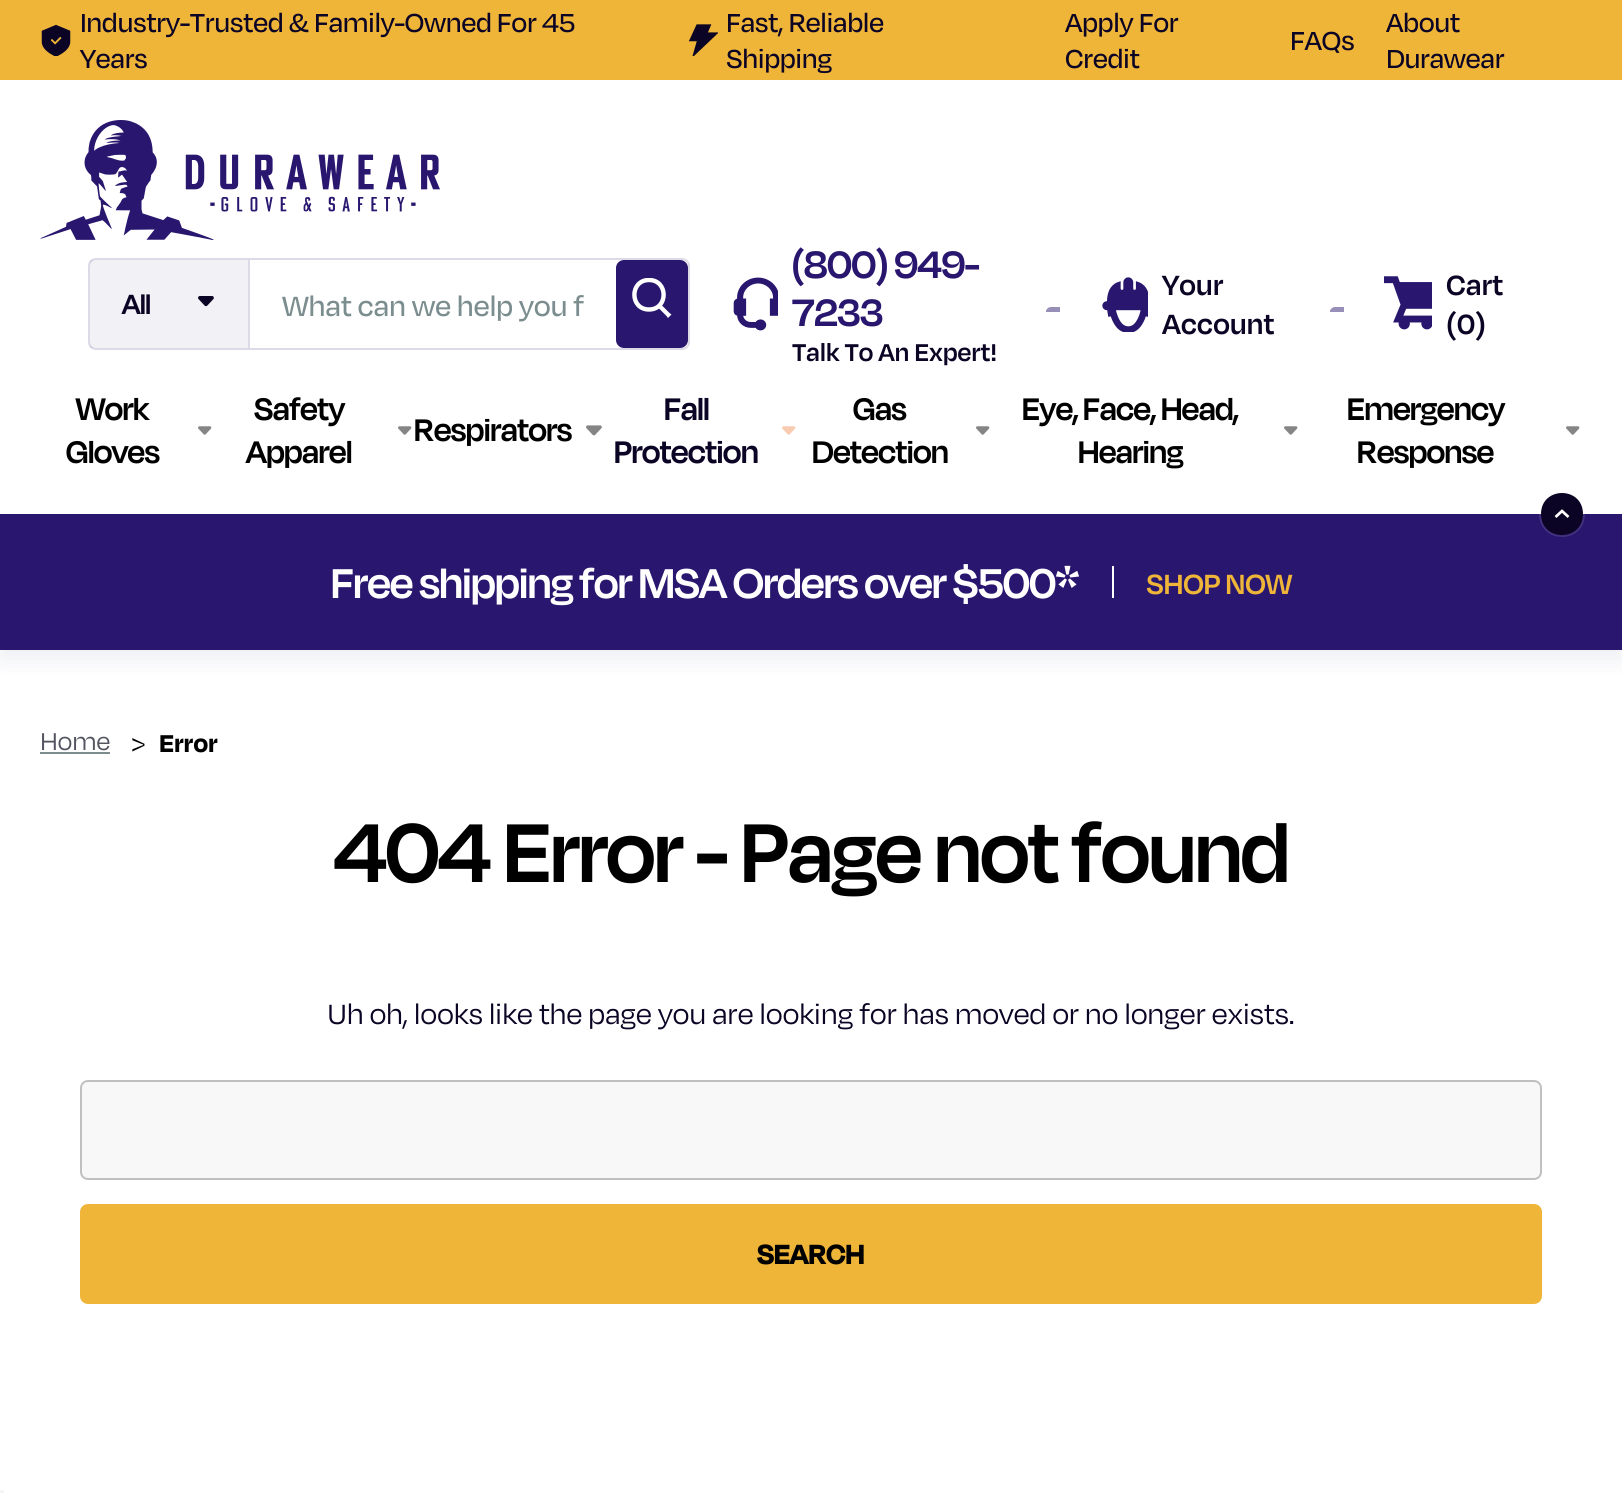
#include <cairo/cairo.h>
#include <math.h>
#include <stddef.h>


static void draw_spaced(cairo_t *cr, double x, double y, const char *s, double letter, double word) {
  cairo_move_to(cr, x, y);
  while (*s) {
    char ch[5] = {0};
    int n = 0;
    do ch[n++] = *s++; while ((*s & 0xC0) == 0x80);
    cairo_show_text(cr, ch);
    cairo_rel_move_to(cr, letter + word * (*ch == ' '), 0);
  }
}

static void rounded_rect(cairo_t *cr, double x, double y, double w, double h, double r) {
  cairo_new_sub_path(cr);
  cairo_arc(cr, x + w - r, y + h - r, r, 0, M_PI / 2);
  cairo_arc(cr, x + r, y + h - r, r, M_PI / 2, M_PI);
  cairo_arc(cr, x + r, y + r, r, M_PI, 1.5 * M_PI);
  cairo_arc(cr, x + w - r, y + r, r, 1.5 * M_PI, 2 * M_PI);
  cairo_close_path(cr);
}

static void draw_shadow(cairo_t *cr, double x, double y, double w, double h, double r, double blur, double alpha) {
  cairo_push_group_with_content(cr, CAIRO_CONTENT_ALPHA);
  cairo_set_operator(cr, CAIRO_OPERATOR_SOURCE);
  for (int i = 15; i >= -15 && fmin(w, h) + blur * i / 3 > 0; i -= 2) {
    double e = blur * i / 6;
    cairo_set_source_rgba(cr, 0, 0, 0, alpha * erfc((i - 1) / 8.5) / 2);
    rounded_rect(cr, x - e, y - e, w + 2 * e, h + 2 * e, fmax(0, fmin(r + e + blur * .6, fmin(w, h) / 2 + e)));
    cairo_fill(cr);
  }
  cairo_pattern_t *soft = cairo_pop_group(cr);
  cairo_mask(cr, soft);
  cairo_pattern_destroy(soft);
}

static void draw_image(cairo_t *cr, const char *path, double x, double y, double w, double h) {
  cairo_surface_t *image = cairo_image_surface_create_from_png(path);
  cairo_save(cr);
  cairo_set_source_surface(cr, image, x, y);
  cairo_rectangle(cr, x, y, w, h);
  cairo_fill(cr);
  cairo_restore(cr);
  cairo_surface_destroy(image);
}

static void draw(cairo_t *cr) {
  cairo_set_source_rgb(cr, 1, 1, 1);
  cairo_paint(cr);
  cairo_set_source_rgb(cr, 0, 25 / 255.0, 81 / 255.0);
  draw_shadow(cr, 0, 8, 1622, 650, 0, 12, 0.08);
  cairo_set_source_rgb(cr, 1, 1, 1);
  cairo_rectangle(cr, 0, 80, 1622, 434);
  cairo_fill(cr);
  cairo_set_source_rgb(cr, 238 / 255.0, 181 / 255.0, 57 / 255.0);
  cairo_rectangle(cr, 0, 0, 1622, 80);
  cairo_fill(cr);
  draw_image(cr, "images/1.png", 41, 24, 30, 32);
  draw_image(cr, "images/2.png", 688, 24, 30, 32);
  draw_image(cr, "images/3.png", 40, 120, 400, 120);
  rounded_rect(cr, 89, 259, 600, 90, 7);
  cairo_set_source_rgb(cr, 221 / 255.0, 218 / 255.0, 232 / 255.0);
  cairo_stroke(cr);
  cairo_set_source_rgba(cr, 41 / 255.0, 22 / 255.0, 110 / 255.0, 0.06);
  cairo_rectangle(cr, 90, 260, 158, 88);
  cairo_fill(cr);
  draw_image(cr, "images/4.png", 198, 296, 16, 11);
  cairo_set_source_rgb(cr, 221 / 255.0, 218 / 255.0, 232 / 255.0);
  cairo_rectangle(cr, 248, 260, 2, 88);
  cairo_fill(cr);
  cairo_set_source_rgb(cr, 41 / 255.0, 22 / 255.0, 110 / 255.0);
  rounded_rect(cr, 616, 260, 72, 88, 8);
  cairo_fill(cr);
  cairo_set_source_rgb(cr, 1, 1, 1);
  cairo_new_path(cr);
  cairo_move_to(cr, 666.5, 316);
  cairo_line_to(cr, 668, 318);
  cairo_line_to(cr, 671.5, 314.5);
  cairo_line_to(cr, 669.5, 313);
  cairo_close_path(cr);
  cairo_move_to(cr, 659, 305.5);
  cairo_line_to(cr, 657.5, 307);
  cairo_line_to(cr, 666.5, 316);
  cairo_line_to(cr, 669.5, 313);
  cairo_line_to(cr, 660.5, 304);
  cairo_close_path(cr);
  cairo_fill(cr);
  cairo_save(cr);
  cairo_rectangle(cr, 632, 278, 40, 40);
  cairo_clip(cr);
  cairo_new_path(cr);
  cairo_move_to(cr, 649, 280);
  cairo_curve_to(cr, 668.5, 280, 668.5, 309.5, 649, 309.5);
  cairo_curve_to(cr, 629.5, 309.5, 629.5, 280, 649, 280);
  cairo_close_path(cr);
  cairo_set_line_width(cr, 4.4);
  cairo_stroke(cr);
  cairo_restore(cr);
  draw_image(cr, "images/5.png", 733, 277, 45, 54);
  cairo_save(cr);
  cairo_rectangle(cr, 1046, 296, 14, 16);
  cairo_clip(cr);
  cairo_set_source_rgb(cr, 152 / 255.0, 143 / 255.0, 185 / 255.0);
  cairo_new_path(cr);
  cairo_move_to(cr, 1074, 336);
  cairo_curve_to(cr, 1072, 338, 1069, 338, 1067, 336);
  cairo_line_to(cr, 1047, 315);
  cairo_curve_to(cr, 1044, 312, 1047, 307, 1051, 307);
  cairo_line_to(cr, 1090, 307);
  cairo_curve_to(cr, 1095, 307, 1097, 312, 1094, 315);
  cairo_close_path(cr);
  cairo_fill(cr);
  cairo_restore(cr);
  draw_image(cr, "images/6.png", 1102, 277, 46, 55);
  cairo_save(cr);
  cairo_rectangle(cr, 1330, 296, 14, 16);
  cairo_clip(cr);
  cairo_set_source_rgb(cr, 152 / 255.0, 143 / 255.0, 185 / 255.0);
  cairo_new_path(cr);
  cairo_move_to(cr, 1358, 336);
  cairo_curve_to(cr, 1356, 338, 1353, 338, 1351, 336);
  cairo_line_to(cr, 1331, 315);
  cairo_curve_to(cr, 1328, 312, 1331, 307, 1335, 307);
  cairo_line_to(cr, 1374, 307);
  cairo_curve_to(cr, 1379, 307, 1381, 312, 1378, 315);
  cairo_close_path(cr);
  cairo_fill(cr);
  cairo_restore(cr);
  draw_image(cr, "images/7.png", 1384, 276, 48, 54);
  draw_image(cr, "images/8.png", 198, 426, 14, 9);
  draw_image(cr, "images/9.png", 398, 426, 14, 9);
  draw_image(cr, "images/10.png", 586, 425, 16, 11);
  draw_image(cr, "images/11.png", 782, 426, 14, 9);
  draw_image(cr, "images/9.png", 976, 426, 14, 9);
  draw_image(cr, "images/12.png", 1284, 426, 14, 9);
  draw_image(cr, "images/12.png", 1566, 426, 14, 9);
  cairo_set_source_rgb(cr, 41 / 255.0, 22 / 255.0, 110 / 255.0);
  cairo_rectangle(cr, 0, 514, 1622, 136);
  cairo_fill(cr);
  cairo_set_source_rgb(cr, 12 / 255.0, 4 / 255.0, 36 / 255.0);
  cairo_new_path(cr);
  cairo_move_to(cr, 1541, 514);
  cairo_curve_to(cr, 1541, 486, 1583, 486, 1583, 514);
  cairo_curve_to(cr, 1583, 542, 1541, 542, 1541, 514);
  cairo_close_path(cr);
  cairo_fill(cr);
  cairo_new_path(cr);
  cairo_move_to(cr, 1540, 514);
  cairo_curve_to(cr, 1540, 484.5, 1584, 484.5, 1584, 514);
  cairo_curve_to(cr, 1584, 543.5, 1540, 543.5, 1540, 514);
  cairo_close_path(cr);
  cairo_set_source_rgba(cr, 1, 1, 1, 0.12);
  cairo_set_line_width(cr, 1.8);
  cairo_stroke(cr);
  cairo_new_path(cr);
  cairo_move_to(cr, 1555.5, 517);
  cairo_line_to(cr, 1562, 511);
  cairo_line_to(cr, 1568.5, 517);
  cairo_set_source_rgb(cr, 1, 1, 1);
  cairo_set_line_width(cr, 2.7);
  cairo_stroke(cr);
  cairo_rectangle(cr, 1112, 566, 2, 32);
  cairo_fill(cr);
  cairo_set_source_rgb(cr, 123 / 255.0, 141 / 255.0, 142 / 255.0);
  cairo_rectangle(cr, 40, 752, 70, 2);
  cairo_fill(cr);
  cairo_set_source_rgb(cr, 248 / 255.0, 248 / 255.0, 248 / 255.0);
  rounded_rect(cr, 81, 1081, 1460, 98, 7);
  cairo_fill_preserve(cr);
  cairo_set_source_rgb(cr, 192 / 255.0, 192 / 255.0, 192 / 255.0);
  cairo_set_line_width(cr, 2);
  cairo_stroke(cr);
  cairo_set_source_rgb(cr, 238 / 255.0, 181 / 255.0, 57 / 255.0);
  rounded_rect(cr, 80, 1204, 1462, 100, 8);
  cairo_fill(cr);
  cairo_set_source_rgb(cr, 245 / 255.0, 245 / 255.0, 245 / 255.0);
  cairo_rectangle(cr, 0, 1490, 4, 3);
  cairo_fill(cr);
  cairo_select_font_face(cr, "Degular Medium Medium", CAIRO_FONT_SLANT_NORMAL, CAIRO_FONT_WEIGHT_NORMAL);
  cairo_set_font_size(cr, 30);
  cairo_set_source_rgb(cr, 12 / 255.0, 4 / 255.0, 36 / 255.0);
  draw_spaced(cr, 80, 32, "Industry-Trusted & Family-Owned For 45", -0.45, 0);
  draw_spaced(cr, 80, 68, "Years", -0.45, 0);
  draw_spaced(cr, 726, 32, "Fast, Reliable", -0.45, 0);
  draw_spaced(cr, 726, 68, "Shipping", -0.45, 0);
  draw_spaced(cr, 1065, 32, "Apply For", -0.45, 0);
  draw_spaced(cr, 1065, 68, "Credit", -0.45, 0);
  draw_spaced(cr, 1290, 50, "FAQs", -0.45, 0);
  draw_spaced(cr, 1386, 32, "About", -0.45, 0);
  draw_spaced(cr, 1386, 68, "Durawear", -0.45, 0);
  cairo_select_font_face(cr, "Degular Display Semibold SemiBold", CAIRO_FONT_SLANT_NORMAL, CAIRO_FONT_WEIGHT_NORMAL);
  cairo_set_font_size(cr, 32);
  draw_spaced(cr, 122, 314, "All", -0.32, 0);
  cairo_select_font_face(cr, "Degular Medium Medium", CAIRO_FONT_SLANT_NORMAL, CAIRO_FONT_WEIGHT_NORMAL);
  cairo_set_source_rgb(cr, 123 / 255.0, 141 / 255.0, 142 / 255.0);
  draw_spaced(cr, 282, 316, "What can we help you f", -0.32, 0);
  cairo_select_font_face(cr, "Degular Display Semibold SemiBold", CAIRO_FONT_SLANT_NORMAL, CAIRO_FONT_WEIGHT_NORMAL);
  cairo_set_font_size(cr, 44);
  cairo_set_source_rgb(cr, 41 / 255.0, 22 / 255.0, 110 / 255.0);
  draw_spaced(cr, 792, 278, "(800) 949-", -0.25, 0);
  draw_spaced(cr, 792, 326, "7233", -0.25, 0);
  cairo_select_font_face(cr, "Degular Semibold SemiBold", CAIRO_FONT_SLANT_NORMAL, CAIRO_FONT_WEIGHT_NORMAL);
  cairo_set_font_size(cr, 28);
  cairo_set_source_rgb(cr, 12 / 255.0, 4 / 255.0, 36 / 255.0);
  draw_spaced(cr, 792, 361, "Talk To An Expert!", -0.25, 0);
  cairo_set_font_size(cr, 32);
  draw_spaced(cr, 1162, 295, "Your", -0.25, 0);
  draw_spaced(cr, 1162, 334, "Account", -0.25, 0);
  draw_spaced(cr, 1446, 295, "Cart", -0.25, 0);
  draw_spaced(cr, 1446, 334, "(0)", -0.25, 0);
  cairo_select_font_face(cr, "Degular Display Semibold SemiBold", CAIRO_FONT_SLANT_NORMAL, CAIRO_FONT_WEIGHT_NORMAL);
  cairo_set_font_size(cr, 36);
  cairo_set_source_rgb(cr, 0, 0, 0);
  draw_spaced(cr, 76, 420, "Work", -0.4, 0);
  draw_spaced(cr, 66, 463, "Gloves", -0.4, 0);
  draw_spaced(cr, 254, 420, "Safety", -0.4, 0);
  draw_spaced(cr, 246, 463, "Apparel", -0.4, 0);
  draw_spaced(cr, 414, 441, "Respirators", -0.4, 0);
  cairo_set_source_rgb(cr, 12 / 255.0, 4 / 255.0, 36 / 255.0);
  draw_spaced(cr, 664, 420, "Fall", -0.4, 0);
  draw_spaced(cr, 614, 463, "Protection", -0.4, 0);
  cairo_set_source_rgb(cr, 0, 0, 0);
  draw_spaced(cr, 853, 420, "Gas", -0.4, 0);
  draw_spaced(cr, 812, 463, "Detection", -0.4, 0);
  draw_spaced(cr, 1022, 420, "Eye, Face, Head,", -0.4, 0);
  draw_spaced(cr, 1078, 463, "Hearing", -0.4, 0);
  draw_spaced(cr, 1347, 420, "Emergency", -0.4, 0);
  draw_spaced(cr, 1357, 463, "Response", -0.4, 0);
  cairo_set_font_size(cr, 48);
  cairo_set_source_rgb(cr, 1, 1, 1);
  draw_spaced(cr, 331, 598, "Free shipping for MSA Orders over $500*", -0.5, 0);
  cairo_select_font_face(cr, "Degular Semibold SemiBold", CAIRO_FONT_SLANT_NORMAL, CAIRO_FONT_WEIGHT_NORMAL);
  cairo_set_font_size(cr, 32);
  cairo_set_source_rgb(cr, 238 / 255.0, 181 / 255.0, 57 / 255.0);
  draw_spaced(cr, 1146, 594, "SHOP NOW", -0.75, 0);
  cairo_select_font_face(cr, "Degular", CAIRO_FONT_SLANT_NORMAL, CAIRO_FONT_WEIGHT_NORMAL);
  cairo_set_font_size(cr, 28);
  cairo_set_source_rgb(cr, 82 / 255.0, 84 / 255.0, 96 / 255.0);
  draw_spaced(cr, 40, 750, "Home", -0.25, 0);
  cairo_set_source_rgb(cr, 0, 0, 0);
  draw_spaced(cr, 131, 752, ">", -0.32, 0);
  cairo_select_font_face(cr, "Degular", CAIRO_FONT_SLANT_NORMAL, CAIRO_FONT_WEIGHT_BOLD);
  draw_spaced(cr, 159, 752, "Error", -0.25, 0);
  cairo_select_font_face(cr, "Degular Display Semibold SemiBold", CAIRO_FONT_SLANT_NORMAL, CAIRO_FONT_WEIGHT_NORMAL);
  cairo_set_font_size(cr, 96);
  draw_spaced(cr, 334, 882, "404 Error - Page not found", -0.95, 0);
  cairo_select_font_face(cr, "Degular", CAIRO_FONT_SLANT_NORMAL, CAIRO_FONT_WEIGHT_NORMAL);
  cairo_set_font_size(cr, 32);
  cairo_set_source_rgb(cr, 12 / 255.0, 4 / 255.0, 36 / 255.0);
  draw_spaced(cr, 327, 1024, "Uh oh, looks like the page you are looking for has moved or no longer exists.", -0.32, 0);
  cairo_select_font_face(cr, "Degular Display", CAIRO_FONT_SLANT_NORMAL, CAIRO_FONT_WEIGHT_BOLD);
  cairo_set_source_rgb(cr, 0, 0, 0);
  draw_spaced(cr, 757, 1264, "SEARCH", -0.32, 0);
}

int main(void) {
  cairo_surface_t *surface = cairo_image_surface_create(CAIRO_FORMAT_RGB24, 1622, 1493);
  cairo_t *cr = cairo_create(surface);
  cairo_font_options_t *options = cairo_font_options_create();
  cairo_font_options_set_hint_metrics(options, CAIRO_HINT_METRICS_OFF);
  cairo_font_options_set_hint_style(options, CAIRO_HINT_STYLE_NONE);
  cairo_set_font_options(cr, options);
  cairo_set_miter_limit(cr, 4);
  draw(cr);
  cairo_surface_write_to_png(surface, "out.png");
  cairo_font_options_destroy(options);
  cairo_destroy(cr);
  cairo_surface_destroy(surface);
  return 0;
}
